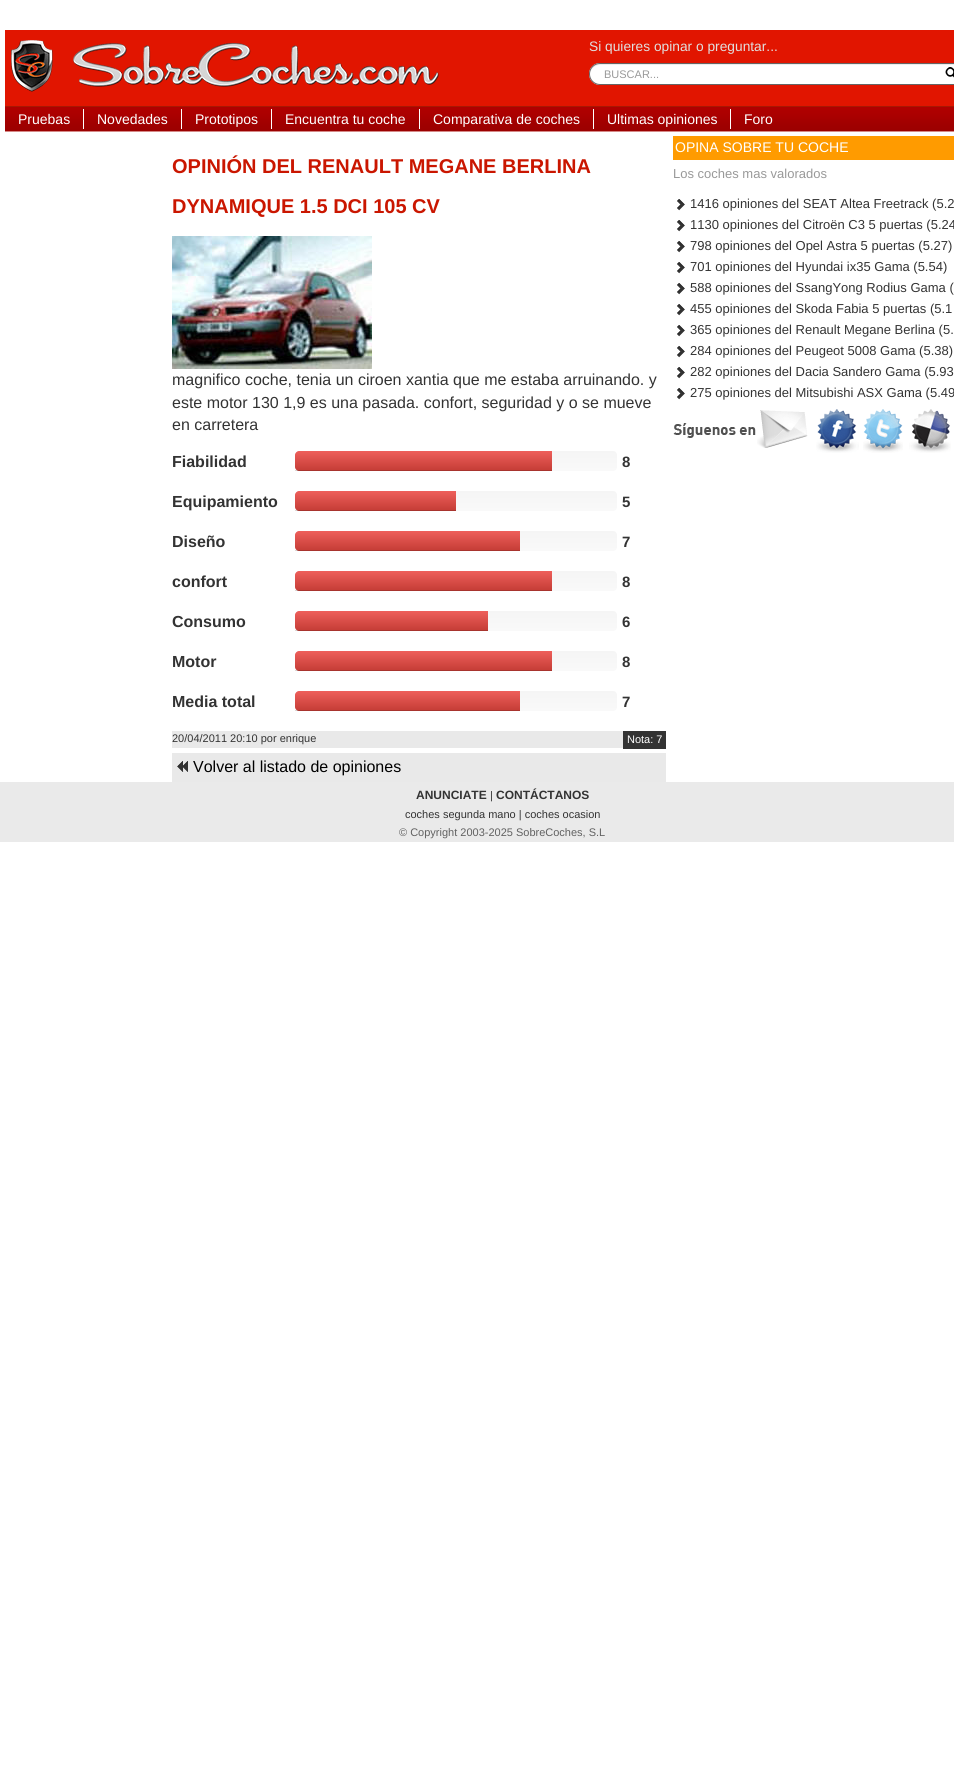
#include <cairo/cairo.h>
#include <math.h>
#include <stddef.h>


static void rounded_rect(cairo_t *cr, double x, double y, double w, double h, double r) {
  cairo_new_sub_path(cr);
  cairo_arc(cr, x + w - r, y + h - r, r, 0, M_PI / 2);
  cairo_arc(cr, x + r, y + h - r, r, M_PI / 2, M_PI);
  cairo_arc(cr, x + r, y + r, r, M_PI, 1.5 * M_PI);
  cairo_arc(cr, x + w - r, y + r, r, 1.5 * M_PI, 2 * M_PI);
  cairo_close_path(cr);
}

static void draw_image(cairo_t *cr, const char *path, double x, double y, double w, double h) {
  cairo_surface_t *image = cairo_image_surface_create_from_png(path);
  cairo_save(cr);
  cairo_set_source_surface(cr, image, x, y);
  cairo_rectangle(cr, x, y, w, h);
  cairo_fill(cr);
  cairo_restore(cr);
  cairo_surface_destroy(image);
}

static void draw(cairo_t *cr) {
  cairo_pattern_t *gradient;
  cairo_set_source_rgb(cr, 1, 1, 1);
  cairo_paint(cr);
  cairo_set_source_rgb(cr, 225 / 255.0, 21 / 255.0, 0);
  cairo_rectangle(cr, 5, 30, 949, 76);
  cairo_fill(cr);
  draw_image(cr, "images/1.png", 11, 40, 428, 52);
  cairo_set_source_rgb(cr, 1, 1, 1);
  rounded_rect(cr, 589, 63, 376, 22, 11);
  cairo_fill(cr);
  draw_image(cr, "images/2.png", 945, 67, 9, 11);
  cairo_set_source_rgb(cr, 236 / 255.0, 236 / 255.0, 236 / 255.0);
  cairo_new_path(cr);
  cairo_move_to(cr, 600, 65);
  cairo_line_to(cr, 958, 65);
  cairo_curve_to(cr, 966, 65, 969, 72, 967, 78);
  cairo_line_to(cr, 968, 74);
  cairo_curve_to(cr, 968, 68, 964, 64, 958, 64);
  cairo_line_to(cr, 600, 64);
  cairo_curve_to(cr, 595, 64, 591, 68, 590, 73);
  cairo_curve_to(cr, 591, 68, 596, 65, 600, 65);
  cairo_close_path(cr);
  cairo_fill(cr);
  rounded_rect(cr, 589.5, 63.5, 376, 21, 10.5);
  cairo_set_source_rgb(cr, 101 / 255.0, 101 / 255.0, 101 / 255.0);
  cairo_set_line_width(cr, 1);
  cairo_stroke(cr);
  draw_image(cr, "images/3.png", 5, 107, 949, 24);
  cairo_set_source_rgb(cr, 167 / 255.0, 24 / 255.0, 3 / 255.0);
  cairo_rectangle(cr, 5, 106, 949, 1);
  cairo_fill(cr);
  cairo_set_source_rgb(cr, 213 / 255.0, 137 / 255.0, 135 / 255.0);
  cairo_rectangle(cr, 5, 131, 949, 1);
  cairo_fill(cr);
  cairo_set_source_rgb(cr, 1, 1, 1);
  cairo_rectangle(cr, 83, 109, 1, 20);
  cairo_fill(cr);
  cairo_rectangle(cr, 181, 109, 1, 20);
  cairo_fill(cr);
  cairo_rectangle(cr, 271, 109, 1, 20);
  cairo_fill(cr);
  cairo_rectangle(cr, 419, 109, 1, 20);
  cairo_fill(cr);
  cairo_rectangle(cr, 593, 109, 1, 20);
  cairo_fill(cr);
  cairo_rectangle(cr, 730, 109, 1, 20);
  cairo_fill(cr);
  draw_image(cr, "images/4.png", 172, 236, 200, 133);
  gradient = cairo_pattern_create_linear(456, 451, 456, 471);
  cairo_pattern_add_color_stop_rgba(gradient, 0, 245 / 255.0, 245 / 255.0, 245 / 255.0, 1);
  cairo_pattern_add_color_stop_rgba(gradient, 1, 249 / 255.0, 249 / 255.0, 249 / 255.0, 1);
  cairo_set_source(cr, gradient);
  cairo_pattern_destroy(gradient);
  rounded_rect(cr, 295, 451, 322, 20, 4);
  cairo_fill(cr);
  gradient = cairo_pattern_create_linear(424, 451, 424, 471);
  cairo_pattern_add_color_stop_rgba(gradient, 0, 238 / 255.0, 95 / 255.0, 91 / 255.0, 1);
  cairo_pattern_add_color_stop_rgba(gradient, 1, 196 / 255.0, 60 / 255.0, 53 / 255.0, 1);
  cairo_set_source(cr, gradient);
  cairo_pattern_destroy(gradient);
  cairo_new_path(cr);
  cairo_move_to(cr, 299, 451);
  cairo_line_to(cr, 552, 451);
  cairo_line_to(cr, 552, 471);
  cairo_line_to(cr, 299, 471);
  cairo_curve_to(cr, 297, 471, 295, 469, 295, 467);
  cairo_line_to(cr, 295, 455);
  cairo_curve_to(cr, 295, 453, 297, 451, 299, 451);
  cairo_close_path(cr);
  cairo_fill(cr);
  cairo_set_source_rgba(cr, 0, 0, 0, 0.15);
  cairo_rectangle(cr, 295, 470, 257, 1);
  cairo_fill(cr);
  gradient = cairo_pattern_create_linear(456, 491, 456, 511);
  cairo_pattern_add_color_stop_rgba(gradient, 0, 245 / 255.0, 245 / 255.0, 245 / 255.0, 1);
  cairo_pattern_add_color_stop_rgba(gradient, 1, 249 / 255.0, 249 / 255.0, 249 / 255.0, 1);
  cairo_set_source(cr, gradient);
  cairo_pattern_destroy(gradient);
  rounded_rect(cr, 295, 491, 322, 20, 4);
  cairo_fill(cr);
  gradient = cairo_pattern_create_linear(376, 491, 376, 511);
  cairo_pattern_add_color_stop_rgba(gradient, 0, 238 / 255.0, 95 / 255.0, 91 / 255.0, 1);
  cairo_pattern_add_color_stop_rgba(gradient, 1, 196 / 255.0, 60 / 255.0, 53 / 255.0, 1);
  cairo_set_source(cr, gradient);
  cairo_pattern_destroy(gradient);
  cairo_new_path(cr);
  cairo_move_to(cr, 299, 491);
  cairo_line_to(cr, 456, 491);
  cairo_line_to(cr, 456, 511);
  cairo_line_to(cr, 299, 511);
  cairo_curve_to(cr, 297, 511, 295, 509, 295, 507);
  cairo_line_to(cr, 295, 495);
  cairo_curve_to(cr, 295, 493, 297, 491, 299, 491);
  cairo_close_path(cr);
  cairo_fill(cr);
  cairo_set_source_rgba(cr, 0, 0, 0, 0.15);
  cairo_rectangle(cr, 295, 510, 161, 1);
  cairo_fill(cr);
  gradient = cairo_pattern_create_linear(456, 531, 456, 551);
  cairo_pattern_add_color_stop_rgba(gradient, 0, 245 / 255.0, 245 / 255.0, 245 / 255.0, 1);
  cairo_pattern_add_color_stop_rgba(gradient, 1, 249 / 255.0, 249 / 255.0, 249 / 255.0, 1);
  cairo_set_source(cr, gradient);
  cairo_pattern_destroy(gradient);
  rounded_rect(cr, 295, 531, 322, 20, 4);
  cairo_fill(cr);
  gradient = cairo_pattern_create_linear(408, 531, 408, 551);
  cairo_pattern_add_color_stop_rgba(gradient, 0, 238 / 255.0, 95 / 255.0, 91 / 255.0, 1);
  cairo_pattern_add_color_stop_rgba(gradient, 1, 196 / 255.0, 60 / 255.0, 53 / 255.0, 1);
  cairo_set_source(cr, gradient);
  cairo_pattern_destroy(gradient);
  cairo_new_path(cr);
  cairo_move_to(cr, 299, 531);
  cairo_line_to(cr, 520, 531);
  cairo_line_to(cr, 520, 551);
  cairo_line_to(cr, 299, 551);
  cairo_curve_to(cr, 297, 551, 295, 549, 295, 547);
  cairo_line_to(cr, 295, 535);
  cairo_curve_to(cr, 295, 533, 297, 531, 299, 531);
  cairo_close_path(cr);
  cairo_fill(cr);
  cairo_set_source_rgba(cr, 0, 0, 0, 0.15);
  cairo_rectangle(cr, 295, 550, 225, 1);
  cairo_fill(cr);
  gradient = cairo_pattern_create_linear(456, 571, 456, 591);
  cairo_pattern_add_color_stop_rgba(gradient, 0, 245 / 255.0, 245 / 255.0, 245 / 255.0, 1);
  cairo_pattern_add_color_stop_rgba(gradient, 1, 249 / 255.0, 249 / 255.0, 249 / 255.0, 1);
  cairo_set_source(cr, gradient);
  cairo_pattern_destroy(gradient);
  rounded_rect(cr, 295, 571, 322, 20, 4);
  cairo_fill(cr);
  gradient = cairo_pattern_create_linear(424, 571, 424, 591);
  cairo_pattern_add_color_stop_rgba(gradient, 0, 238 / 255.0, 95 / 255.0, 91 / 255.0, 1);
  cairo_pattern_add_color_stop_rgba(gradient, 1, 196 / 255.0, 60 / 255.0, 53 / 255.0, 1);
  cairo_set_source(cr, gradient);
  cairo_pattern_destroy(gradient);
  cairo_new_path(cr);
  cairo_move_to(cr, 299, 571);
  cairo_line_to(cr, 552, 571);
  cairo_line_to(cr, 552, 591);
  cairo_line_to(cr, 299, 591);
  cairo_curve_to(cr, 297, 591, 295, 589, 295, 587);
  cairo_line_to(cr, 295, 575);
  cairo_curve_to(cr, 295, 573, 297, 571, 299, 571);
  cairo_close_path(cr);
  cairo_fill(cr);
  cairo_set_source_rgba(cr, 0, 0, 0, 0.15);
  cairo_rectangle(cr, 295, 590, 257, 1);
  cairo_fill(cr);
  gradient = cairo_pattern_create_linear(456, 611, 456, 631);
  cairo_pattern_add_color_stop_rgba(gradient, 0, 245 / 255.0, 245 / 255.0, 245 / 255.0, 1);
  cairo_pattern_add_color_stop_rgba(gradient, 1, 249 / 255.0, 249 / 255.0, 249 / 255.0, 1);
  cairo_set_source(cr, gradient);
  cairo_pattern_destroy(gradient);
  rounded_rect(cr, 295, 611, 322, 20, 4);
  cairo_fill(cr);
  gradient = cairo_pattern_create_linear(392, 611, 392, 631);
  cairo_pattern_add_color_stop_rgba(gradient, 0, 238 / 255.0, 95 / 255.0, 91 / 255.0, 1);
  cairo_pattern_add_color_stop_rgba(gradient, 1, 196 / 255.0, 60 / 255.0, 53 / 255.0, 1);
  cairo_set_source(cr, gradient);
  cairo_pattern_destroy(gradient);
  cairo_new_path(cr);
  cairo_move_to(cr, 299, 611);
  cairo_line_to(cr, 488, 611);
  cairo_line_to(cr, 488, 631);
  cairo_line_to(cr, 299, 631);
  cairo_curve_to(cr, 297, 631, 295, 629, 295, 627);
  cairo_line_to(cr, 295, 615);
  cairo_curve_to(cr, 295, 613, 297, 611, 299, 611);
  cairo_close_path(cr);
  cairo_fill(cr);
  cairo_set_source_rgba(cr, 0, 0, 0, 0.15);
  cairo_rectangle(cr, 295, 630, 193, 1);
  cairo_fill(cr);
  gradient = cairo_pattern_create_linear(456, 651, 456, 671);
  cairo_pattern_add_color_stop_rgba(gradient, 0, 245 / 255.0, 245 / 255.0, 245 / 255.0, 1);
  cairo_pattern_add_color_stop_rgba(gradient, 1, 249 / 255.0, 249 / 255.0, 249 / 255.0, 1);
  cairo_set_source(cr, gradient);
  cairo_pattern_destroy(gradient);
  rounded_rect(cr, 295, 651, 322, 20, 4);
  cairo_fill(cr);
  gradient = cairo_pattern_create_linear(424, 651, 424, 671);
  cairo_pattern_add_color_stop_rgba(gradient, 0, 238 / 255.0, 95 / 255.0, 91 / 255.0, 1);
  cairo_pattern_add_color_stop_rgba(gradient, 1, 196 / 255.0, 60 / 255.0, 53 / 255.0, 1);
  cairo_set_source(cr, gradient);
  cairo_pattern_destroy(gradient);
  cairo_new_path(cr);
  cairo_move_to(cr, 299, 651);
  cairo_line_to(cr, 552, 651);
  cairo_line_to(cr, 552, 671);
  cairo_line_to(cr, 299, 671);
  cairo_curve_to(cr, 297, 671, 295, 669, 295, 667);
  cairo_line_to(cr, 295, 655);
  cairo_curve_to(cr, 295, 653, 297, 651, 299, 651);
  cairo_close_path(cr);
  cairo_fill(cr);
  cairo_set_source_rgba(cr, 0, 0, 0, 0.15);
  cairo_rectangle(cr, 295, 670, 257, 1);
  cairo_fill(cr);
  gradient = cairo_pattern_create_linear(456, 691, 456, 711);
  cairo_pattern_add_color_stop_rgba(gradient, 0, 245 / 255.0, 245 / 255.0, 245 / 255.0, 1);
  cairo_pattern_add_color_stop_rgba(gradient, 1, 249 / 255.0, 249 / 255.0, 249 / 255.0, 1);
  cairo_set_source(cr, gradient);
  cairo_pattern_destroy(gradient);
  rounded_rect(cr, 295, 691, 322, 20, 4);
  cairo_fill(cr);
  gradient = cairo_pattern_create_linear(408, 691, 408, 711);
  cairo_pattern_add_color_stop_rgba(gradient, 0, 238 / 255.0, 95 / 255.0, 91 / 255.0, 1);
  cairo_pattern_add_color_stop_rgba(gradient, 1, 196 / 255.0, 60 / 255.0, 53 / 255.0, 1);
  cairo_set_source(cr, gradient);
  cairo_pattern_destroy(gradient);
  cairo_new_path(cr);
  cairo_move_to(cr, 299, 691);
  cairo_line_to(cr, 520, 691);
  cairo_line_to(cr, 520, 711);
  cairo_line_to(cr, 299, 711);
  cairo_curve_to(cr, 297, 711, 295, 709, 295, 707);
  cairo_line_to(cr, 295, 695);
  cairo_curve_to(cr, 295, 693, 297, 691, 299, 691);
  cairo_close_path(cr);
  cairo_fill(cr);
  cairo_set_source_rgba(cr, 0, 0, 0, 0.15);
  cairo_rectangle(cr, 295, 710, 225, 1);
  cairo_fill(cr);
  cairo_set_source_rgb(cr, 233 / 255.0, 233 / 255.0, 233 / 255.0);
  cairo_rectangle(cr, 172, 731, 451, 17);
  cairo_fill(cr);
  cairo_set_source_rgb(cr, 51 / 255.0, 51 / 255.0, 51 / 255.0);
  cairo_rectangle(cr, 623, 731, 43, 18);
  cairo_fill(cr);
  cairo_set_source_rgb(cr, 233 / 255.0, 233 / 255.0, 233 / 255.0);
  cairo_rectangle(cr, 172, 753, 494, 29);
  cairo_fill(cr);
  draw_image(cr, "images/5.png", 177, 761, 11, 12);
  cairo_set_source_rgb(cr, 1, 155 / 255.0, 0);
  cairo_rectangle(cr, 673, 136, 281, 24);
  cairo_fill(cr);
  draw_image(cr, "images/6.png", 677, 199, 8, 12);
  draw_image(cr, "images/6.png", 677, 220, 8, 12);
  draw_image(cr, "images/6.png", 677, 241, 8, 12);
  draw_image(cr, "images/6.png", 677, 262, 8, 12);
  draw_image(cr, "images/6.png", 677, 283, 8, 12);
  draw_image(cr, "images/6.png", 677, 304, 8, 12);
  draw_image(cr, "images/6.png", 677, 325, 8, 12);
  draw_image(cr, "images/6.png", 677, 346, 8, 12);
  draw_image(cr, "images/6.png", 677, 367, 8, 12);
  draw_image(cr, "images/6.png", 677, 388, 8, 12);
  draw_image(cr, "images/7.png", 673, 423, 84, 15);
  draw_image(cr, "images/8.png", 757, 410, 51, 38);
  draw_image(cr, "images/9.png", 816, 409, 43, 44);
  draw_image(cr, "images/10.png", 863, 409, 40, 44);
  draw_image(cr, "images/11.png", 909, 409, 42, 44);
  cairo_set_source_rgb(cr, 234 / 255.0, 234 / 255.0, 234 / 255.0);
  cairo_rectangle(cr, 0, 782, 954, 60);
  cairo_fill(cr);
  cairo_select_font_face(cr, "Liberation Sans", CAIRO_FONT_SLANT_NORMAL, CAIRO_FONT_WEIGHT_NORMAL);
  cairo_set_font_size(cr, 13.75);
  cairo_set_source_rgb(cr, 224 / 255.0, 223 / 255.0, 223 / 255.0);
  cairo_move_to(cr, 589, 51);
  cairo_show_text(cr, "Si quieres opinar o preguntar...");
  cairo_set_font_size(cr, 11);
  cairo_set_source_rgb(cr, 153 / 255.0, 153 / 255.0, 153 / 255.0);
  cairo_move_to(cr, 604, 78);
  cairo_show_text(cr, "BUSCAR...");
  cairo_set_font_size(cr, 14);
  cairo_set_source_rgb(cr, 1, 1, 1);
  cairo_move_to(cr, 18, 124);
  cairo_show_text(cr, "Pruebas");
  cairo_move_to(cr, 97, 124);
  cairo_show_text(cr, "Novedades");
  cairo_move_to(cr, 195, 124);
  cairo_show_text(cr, "Prototipos");
  cairo_move_to(cr, 285, 124);
  cairo_show_text(cr, "Encuentra tu coche");
  cairo_move_to(cr, 433, 124);
  cairo_show_text(cr, "Comparativa de coches");
  cairo_move_to(cr, 607, 124);
  cairo_show_text(cr, "Ultimas opiniones");
  cairo_move_to(cr, 744, 124);
  cairo_show_text(cr, "Foro");
  cairo_select_font_face(cr, "Liberation Sans", CAIRO_FONT_SLANT_NORMAL, CAIRO_FONT_WEIGHT_BOLD);
  cairo_set_font_size(cr, 20);
  cairo_set_source_rgb(cr, 202 / 255.0, 22 / 255.0, 0);
  cairo_move_to(cr, 172, 173);
  cairo_show_text(cr, "OPINIÓN DEL RENAULT MEGANE BERLINA");
  cairo_move_to(cr, 172, 213);
  cairo_show_text(cr, "DYNAMIQUE 1.5 DCI 105 CV");
  cairo_select_font_face(cr, "Liberation Sans", CAIRO_FONT_SLANT_NORMAL, CAIRO_FONT_WEIGHT_NORMAL);
  cairo_set_font_size(cr, 16);
  cairo_set_source_rgb(cr, 51 / 255.0, 51 / 255.0, 51 / 255.0);
  cairo_move_to(cr, 172, 385);
  cairo_show_text(cr, "magnifico coche, tenia un ciroen xantia que me estaba arruinando. y");
  cairo_move_to(cr, 172, 408);
  cairo_show_text(cr, "este motor 130 1,9 es una pasada. confort, seguridad y o se mueve");
  cairo_move_to(cr, 172, 430);
  cairo_show_text(cr, "en carretera");
  cairo_select_font_face(cr, "Liberation Sans", CAIRO_FONT_SLANT_NORMAL, CAIRO_FONT_WEIGHT_BOLD);
  cairo_move_to(cr, 172, 467);
  cairo_show_text(cr, "Fiabilidad");
  cairo_set_font_size(cr, 15);
  cairo_move_to(cr, 622, 467);
  cairo_show_text(cr, "8");
  cairo_set_font_size(cr, 16);
  cairo_move_to(cr, 172, 507);
  cairo_show_text(cr, "Equipamiento");
  cairo_set_font_size(cr, 15);
  cairo_move_to(cr, 622, 507);
  cairo_show_text(cr, "5");
  cairo_set_font_size(cr, 16);
  cairo_move_to(cr, 172, 547);
  cairo_show_text(cr, "Diseño");
  cairo_set_font_size(cr, 15);
  cairo_move_to(cr, 622, 547);
  cairo_show_text(cr, "7");
  cairo_set_font_size(cr, 16);
  cairo_move_to(cr, 172, 587);
  cairo_show_text(cr, "confort");
  cairo_set_font_size(cr, 15);
  cairo_move_to(cr, 622, 587);
  cairo_show_text(cr, "8");
  cairo_set_font_size(cr, 16);
  cairo_move_to(cr, 172, 627);
  cairo_show_text(cr, "Consumo");
  cairo_set_font_size(cr, 15);
  cairo_move_to(cr, 622, 627);
  cairo_show_text(cr, "6");
  cairo_set_font_size(cr, 16);
  cairo_move_to(cr, 172, 667);
  cairo_show_text(cr, "Motor");
  cairo_set_font_size(cr, 15);
  cairo_move_to(cr, 622, 667);
  cairo_show_text(cr, "8");
  cairo_set_font_size(cr, 16);
  cairo_move_to(cr, 172, 707);
  cairo_show_text(cr, "Media total");
  cairo_set_font_size(cr, 15);
  cairo_move_to(cr, 622, 707);
  cairo_show_text(cr, "7");
  cairo_select_font_face(cr, "Liberation Sans", CAIRO_FONT_SLANT_NORMAL, CAIRO_FONT_WEIGHT_NORMAL);
  cairo_set_font_size(cr, 11);
  cairo_move_to(cr, 172, 742);
  cairo_show_text(cr, "20/04/2011 20:10 por enrique");
  cairo_set_source_rgb(cr, 1, 1, 1);
  cairo_move_to(cr, 627, 743);
  cairo_show_text(cr, "Nota: 7");
  cairo_set_font_size(cr, 16);
  cairo_set_source_rgb(cr, 0, 0, 0);
  cairo_move_to(cr, 193, 772);
  cairo_show_text(cr, "Volver al listado de opiniones");
  cairo_set_font_size(cr, 14);
  cairo_set_source_rgb(cr, 1, 1, 1);
  cairo_move_to(cr, 675, 152);
  cairo_show_text(cr, "OPINA SOBRE TU COCHE");
  cairo_set_font_size(cr, 13);
  cairo_set_source_rgb(cr, 153 / 255.0, 153 / 255.0, 153 / 255.0);
  cairo_move_to(cr, 673, 178);
  cairo_show_text(cr, "Los coches mas valorados");
  cairo_set_source_rgb(cr, 51 / 255.0, 51 / 255.0, 51 / 255.0);
  cairo_move_to(cr, 690, 208);
  cairo_show_text(cr, "1416 opiniones del SEAT Altea Freetrack (5.2");
  cairo_move_to(cr, 690, 229);
  cairo_show_text(cr, "1130 opiniones del Citroën C3 5 puertas (5.24");
  cairo_move_to(cr, 690, 250);
  cairo_show_text(cr, "798 opiniones del Opel Astra 5 puertas (5.27)");
  cairo_move_to(cr, 690, 271);
  cairo_show_text(cr, "701 opiniones del Hyundai ix35 Gama (5.54)");
  cairo_move_to(cr, 690, 292);
  cairo_show_text(cr, "588 opiniones del SsangYong Rodius Gama (");
  cairo_move_to(cr, 690, 313);
  cairo_show_text(cr, "455 opiniones del Skoda Fabia 5 puertas (5.1");
  cairo_move_to(cr, 690, 334);
  cairo_show_text(cr, "365 opiniones del Renault Megane Berlina (5.");
  cairo_move_to(cr, 690, 355);
  cairo_show_text(cr, "284 opiniones del Peugeot 5008 Gama (5.38)");
  cairo_move_to(cr, 690, 376);
  cairo_show_text(cr, "282 opiniones del Dacia Sandero Gama (5.93");
  cairo_move_to(cr, 690, 397);
  cairo_show_text(cr, "275 opiniones del Mitsubishi ASX Gama (5.49");
  cairo_select_font_face(cr, "Liberation Sans", CAIRO_FONT_SLANT_NORMAL, CAIRO_FONT_WEIGHT_BOLD);
  cairo_set_font_size(cr, 12);
  cairo_move_to(cr, 416, 799);
  cairo_show_text(cr, "ANUNCIATE");
  cairo_select_font_face(cr, "Liberation Sans", CAIRO_FONT_SLANT_NORMAL, CAIRO_FONT_WEIGHT_NORMAL);
  cairo_set_font_size(cr, 11);
  cairo_move_to(cr, 490, 799);
  cairo_show_text(cr, "|");
  cairo_select_font_face(cr, "Liberation Sans", CAIRO_FONT_SLANT_NORMAL, CAIRO_FONT_WEIGHT_BOLD);
  cairo_set_font_size(cr, 12);
  cairo_move_to(cr, 496, 799);
  cairo_show_text(cr, "CONTÁCTANOS");
  cairo_select_font_face(cr, "Liberation Sans", CAIRO_FONT_SLANT_NORMAL, CAIRO_FONT_WEIGHT_NORMAL);
  cairo_set_font_size(cr, 11);
  cairo_move_to(cr, 405, 818);
  cairo_show_text(cr, "coches segunda mano | coches ocasion");
  cairo_set_source_rgb(cr, 97 / 255.0, 97 / 255.0, 97 / 255.0);
  cairo_move_to(cr, 399, 836);
  cairo_show_text(cr, "© Copyright 2003-2025 SobreCoches, S.L");
}

int main(void) {
  cairo_surface_t *surface = cairo_image_surface_create(CAIRO_FORMAT_RGB24, 954, 1770);
  cairo_t *cr = cairo_create(surface);
  cairo_font_options_t *options = cairo_font_options_create();
  cairo_font_options_set_hint_metrics(options, CAIRO_HINT_METRICS_OFF);
  cairo_font_options_set_hint_style(options, CAIRO_HINT_STYLE_NONE);
  cairo_set_font_options(cr, options);
  cairo_set_miter_limit(cr, 4);
  draw(cr);
  cairo_surface_write_to_png(surface, "out.png");
  cairo_font_options_destroy(options);
  cairo_destroy(cr);
  cairo_surface_destroy(surface);
  return 0;
}
